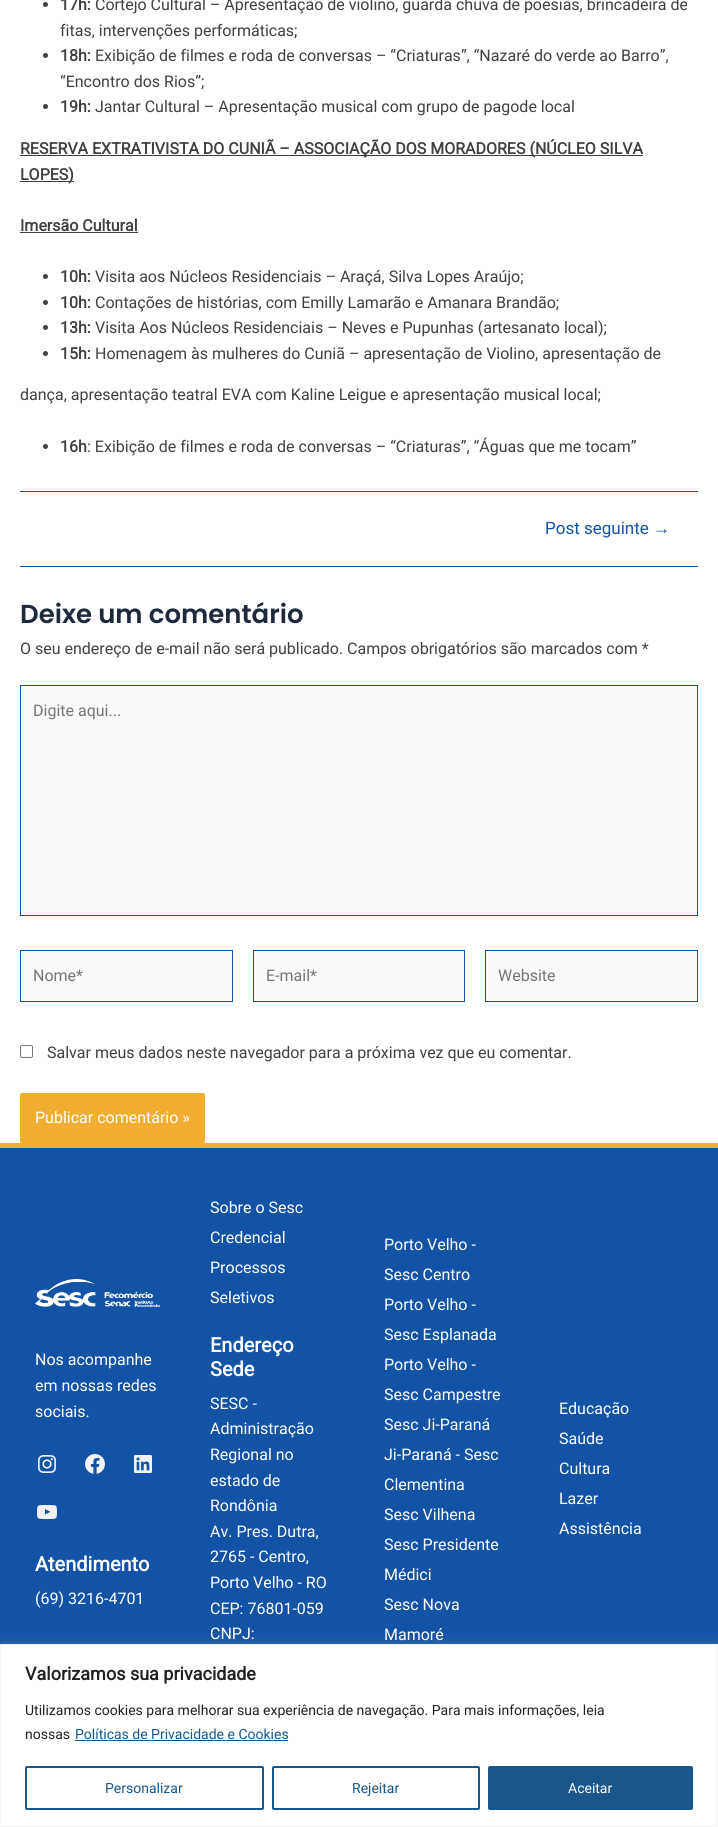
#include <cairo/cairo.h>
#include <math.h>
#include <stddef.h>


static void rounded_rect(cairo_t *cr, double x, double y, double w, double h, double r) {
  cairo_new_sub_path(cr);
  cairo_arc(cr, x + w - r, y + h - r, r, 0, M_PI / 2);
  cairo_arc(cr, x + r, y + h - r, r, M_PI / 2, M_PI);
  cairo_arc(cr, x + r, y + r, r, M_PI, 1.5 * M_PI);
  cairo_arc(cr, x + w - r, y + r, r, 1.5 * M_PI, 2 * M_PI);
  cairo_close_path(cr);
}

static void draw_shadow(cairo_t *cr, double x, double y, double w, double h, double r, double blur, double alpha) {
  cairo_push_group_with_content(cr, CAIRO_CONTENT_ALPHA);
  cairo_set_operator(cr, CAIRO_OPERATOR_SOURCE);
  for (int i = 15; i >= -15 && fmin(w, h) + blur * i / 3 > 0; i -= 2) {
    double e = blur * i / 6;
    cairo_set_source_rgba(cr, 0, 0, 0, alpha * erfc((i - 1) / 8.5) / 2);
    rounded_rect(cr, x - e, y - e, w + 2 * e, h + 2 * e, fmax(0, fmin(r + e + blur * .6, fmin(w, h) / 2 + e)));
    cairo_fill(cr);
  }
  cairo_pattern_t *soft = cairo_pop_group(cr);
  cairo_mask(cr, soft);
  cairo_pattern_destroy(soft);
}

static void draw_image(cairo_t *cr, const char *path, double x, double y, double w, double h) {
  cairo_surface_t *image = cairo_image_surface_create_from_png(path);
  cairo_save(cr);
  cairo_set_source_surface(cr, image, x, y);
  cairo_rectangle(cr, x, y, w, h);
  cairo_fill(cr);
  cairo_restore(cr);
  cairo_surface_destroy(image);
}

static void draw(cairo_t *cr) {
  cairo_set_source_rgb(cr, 1, 1, 1);
  cairo_paint(cr);
  cairo_set_source_rgb(cr, 64 / 255.0, 64 / 255.0, 64 / 255.0);
  cairo_arc(cr, 45.5, 4.5, 2.5, 0, 2 * M_PI);
  cairo_fill(cr);
  cairo_arc(cr, 45.5, 55.5, 2.5, 0, 2 * M_PI);
  cairo_fill(cr);
  cairo_arc(cr, 45.5, 106.5, 2.5, 0, 2 * M_PI);
  cairo_fill(cr);
  cairo_rectangle(cr, 20, 155, 623, 1);
  cairo_fill(cr);
  cairo_rectangle(cr, 20, 181, 54, 1);
  cairo_fill(cr);
  cairo_rectangle(cr, 20, 232, 118, 1);
  cairo_fill(cr);
  cairo_arc(cr, 45.5, 276.5, 2.5, 0, 2 * M_PI);
  cairo_fill(cr);
  cairo_arc(cr, 45.5, 302.5, 2.5, 0, 2 * M_PI);
  cairo_fill(cr);
  cairo_arc(cr, 45.5, 327.5, 2.5, 0, 2 * M_PI);
  cairo_fill(cr);
  cairo_arc(cr, 45.5, 353.5, 2.5, 0, 2 * M_PI);
  cairo_fill(cr);
  cairo_arc(cr, 45.5, 446.5, 2.5, 0, 2 * M_PI);
  cairo_fill(cr);
  cairo_set_source_rgb(cr, 19 / 255.0, 83 / 255.0, 166 / 255.0);
  cairo_rectangle(cr, 20, 491, 678, 1);
  cairo_fill(cr);
  cairo_rectangle(cr, 20, 566, 678, 1);
  cairo_fill(cr);
  cairo_set_source_rgb(cr, 249 / 255.0, 250 / 255.0, 251 / 255.0);
  cairo_rectangle(cr, 20.5, 685.5, 677, 230);
  cairo_fill_preserve(cr);
  cairo_set_source_rgb(cr, 19 / 255.0, 83 / 255.0, 166 / 255.0);
  cairo_set_line_width(cr, 1);
  cairo_stroke(cr);
  cairo_set_source_rgb(cr, 249 / 255.0, 250 / 255.0, 251 / 255.0);
  cairo_rectangle(cr, 20.5, 950.5, 212, 51);
  cairo_fill_preserve(cr);
  cairo_set_source_rgb(cr, 19 / 255.0, 83 / 255.0, 166 / 255.0);
  cairo_stroke(cr);
  cairo_set_source_rgb(cr, 249 / 255.0, 250 / 255.0, 251 / 255.0);
  cairo_rectangle(cr, 253.5, 950.5, 211, 51);
  cairo_fill_preserve(cr);
  cairo_set_source_rgb(cr, 19 / 255.0, 83 / 255.0, 166 / 255.0);
  cairo_stroke(cr);
  cairo_set_source_rgb(cr, 249 / 255.0, 250 / 255.0, 251 / 255.0);
  cairo_rectangle(cr, 485.5, 950.5, 212, 51);
  cairo_fill_preserve(cr);
  cairo_set_source_rgb(cr, 19 / 255.0, 83 / 255.0, 166 / 255.0);
  cairo_stroke(cr);
  rounded_rect(cr, 20.5, 1045.5, 12, 12, 1.5);
  cairo_set_source_rgb(cr, 118 / 255.0, 118 / 255.0, 118 / 255.0);
  cairo_stroke(cr);
  cairo_set_source_rgb(cr, 242 / 255.0, 174 / 255.0, 48 / 255.0);
  rounded_rect(cr, 20, 1093, 185, 50, 2);
  cairo_fill(cr);
  cairo_set_source_rgb(cr, 19 / 255.0, 83 / 255.0, 166 / 255.0);
  cairo_rectangle(cr, 0, 1148, 718, 496);
  cairo_fill(cr);
  cairo_set_source_rgb(cr, 242 / 255.0, 174 / 255.0, 48 / 255.0);
  cairo_rectangle(cr, 0, 1143, 718, 5);
  cairo_fill(cr);
  draw_image(cr, "images/1.png", 35, 1279, 125, 28);
  draw_image(cr, "images/2.png", 38, 1455, 18, 18);
  draw_image(cr, "images/3.png", 85, 1454, 20, 20);
  draw_image(cr, "images/4.png", 134, 1455, 18, 18);
  draw_image(cr, "images/5.png", 37, 1505, 20, 14);
  cairo_set_source_rgb(cr, 172 / 255.0, 171 / 255.0, 171 / 255.0);
  draw_shadow(cr, 0, 1643, 718, 183, 0, 5, 0.3);
  cairo_set_source_rgb(cr, 1, 1, 1);
  cairo_rectangle(cr, 0.5, 1644.5, 717, 182);
  cairo_fill_preserve(cr);
  cairo_set_source_rgb(cr, 244 / 255.0, 244 / 255.0, 244 / 255.0);
  cairo_stroke(cr);
  cairo_set_source_rgb(cr, 24 / 255.0, 86 / 255.0, 140 / 255.0);
  cairo_rectangle(cr, 75, 1740, 213, 1);
  cairo_fill(cr);
  rounded_rect(cr, 26, 1767, 237, 42, 1);
  cairo_set_line_width(cr, 2);
  cairo_stroke(cr);
  rounded_rect(cr, 273, 1767, 206, 42, 1);
  cairo_stroke(cr);
  rounded_rect(cr, 489, 1767, 203, 42, 1);
  cairo_fill_preserve(cr);
  cairo_stroke(cr);
  cairo_select_font_face(cr, "Roboto", CAIRO_FONT_SLANT_NORMAL, CAIRO_FONT_WEIGHT_BOLD);
  cairo_set_font_size(cr, 16);
  cairo_set_source_rgb(cr, 64 / 255.0, 64 / 255.0, 64 / 255.0);
  cairo_move_to(cr, 60, 10);
  cairo_show_text(cr, "17h:");
  cairo_select_font_face(cr, "Roboto", CAIRO_FONT_SLANT_NORMAL, CAIRO_FONT_WEIGHT_NORMAL);
  cairo_move_to(cr, 95, 10);
  cairo_show_text(cr, "Cortejo Cultural – Apresentação de violino, guarda chuva de poesias, brincadeira de");
  cairo_move_to(cr, 60, 36);
  cairo_show_text(cr, "fitas, intervenções performáticas;");
  cairo_select_font_face(cr, "Roboto", CAIRO_FONT_SLANT_NORMAL, CAIRO_FONT_WEIGHT_BOLD);
  cairo_move_to(cr, 60, 61);
  cairo_show_text(cr, "18h:");
  cairo_select_font_face(cr, "Roboto", CAIRO_FONT_SLANT_NORMAL, CAIRO_FONT_WEIGHT_NORMAL);
  cairo_move_to(cr, 95, 61);
  cairo_show_text(cr, "Exibição de filmes e roda de conversas – “Criaturas”, “Nazaré do verde ao Barro”,");
  cairo_move_to(cr, 60, 87);
  cairo_show_text(cr, "“Encontro dos Rios”;");
  cairo_select_font_face(cr, "Roboto", CAIRO_FONT_SLANT_NORMAL, CAIRO_FONT_WEIGHT_BOLD);
  cairo_move_to(cr, 60, 112);
  cairo_show_text(cr, "19h:");
  cairo_select_font_face(cr, "Roboto", CAIRO_FONT_SLANT_NORMAL, CAIRO_FONT_WEIGHT_NORMAL);
  cairo_move_to(cr, 95, 112);
  cairo_show_text(cr, "Jantar Cultural – Apresentação musical com grupo de pagode local");
  cairo_select_font_face(cr, "Roboto", CAIRO_FONT_SLANT_NORMAL, CAIRO_FONT_WEIGHT_BOLD);
  cairo_move_to(cr, 20, 154);
  cairo_show_text(cr, "RESERVA EXTRATIVISTA DO CUNIÃ – ASSOCIAÇÃO DOS MORADORES (NÚCLEO SILVA");
  cairo_move_to(cr, 20, 180);
  cairo_show_text(cr, "LOPES)");
  cairo_move_to(cr, 20, 231);
  cairo_show_text(cr, "Imersão Cultural");
  cairo_move_to(cr, 60, 282);
  cairo_show_text(cr, "10h:");
  cairo_select_font_face(cr, "Roboto", CAIRO_FONT_SLANT_NORMAL, CAIRO_FONT_WEIGHT_NORMAL);
  cairo_move_to(cr, 95, 282);
  cairo_show_text(cr, "Visita aos Núcleos Residenciais – Araçá, Silva Lopes Araújo;");
  cairo_select_font_face(cr, "Roboto", CAIRO_FONT_SLANT_NORMAL, CAIRO_FONT_WEIGHT_BOLD);
  cairo_move_to(cr, 60, 308);
  cairo_show_text(cr, "10h:");
  cairo_select_font_face(cr, "Roboto", CAIRO_FONT_SLANT_NORMAL, CAIRO_FONT_WEIGHT_NORMAL);
  cairo_move_to(cr, 95, 308);
  cairo_show_text(cr, "Contações de histórias, com Emilly Lamarão e Amanara Brandão;");
  cairo_select_font_face(cr, "Roboto", CAIRO_FONT_SLANT_NORMAL, CAIRO_FONT_WEIGHT_BOLD);
  cairo_move_to(cr, 60, 333);
  cairo_show_text(cr, "13h:");
  cairo_select_font_face(cr, "Roboto", CAIRO_FONT_SLANT_NORMAL, CAIRO_FONT_WEIGHT_NORMAL);
  cairo_move_to(cr, 95, 333);
  cairo_show_text(cr, "Visita Aos Núcleos Residenciais – Neves e Pupunhas (artesanato local);");
  cairo_select_font_face(cr, "Roboto", CAIRO_FONT_SLANT_NORMAL, CAIRO_FONT_WEIGHT_BOLD);
  cairo_move_to(cr, 60, 359);
  cairo_show_text(cr, "15h:");
  cairo_select_font_face(cr, "Roboto", CAIRO_FONT_SLANT_NORMAL, CAIRO_FONT_WEIGHT_NORMAL);
  cairo_move_to(cr, 95, 359);
  cairo_show_text(cr, "Homenagem às mulheres do Cuniã – apresentação de Violino, apresentação de");
  cairo_move_to(cr, 20, 400);
  cairo_show_text(cr, "dança, apresentação teatral EVA com Kaline Leigue e apresentação musical local;");
  cairo_select_font_face(cr, "Roboto", CAIRO_FONT_SLANT_NORMAL, CAIRO_FONT_WEIGHT_BOLD);
  cairo_move_to(cr, 60, 452);
  cairo_show_text(cr, "16h");
  cairo_select_font_face(cr, "Roboto", CAIRO_FONT_SLANT_NORMAL, CAIRO_FONT_WEIGHT_NORMAL);
  cairo_move_to(cr, 87, 452);
  cairo_show_text(cr, ": Exibição de filmes e roda de conversas – “Criaturas”, “Águas que me tocam”");
  cairo_set_font_size(cr, 17);
  cairo_set_source_rgb(cr, 19 / 255.0, 83 / 255.0, 166 / 255.0);
  cairo_move_to(cr, 545, 534);
  cairo_show_text(cr, "Post seguinte");
  cairo_select_font_face(cr, "Liberation Sans", CAIRO_FONT_SLANT_NORMAL, CAIRO_FONT_WEIGHT_NORMAL);
  cairo_move_to(cr, 653, 534);
  cairo_show_text(cr, "→");
  cairo_select_font_face(cr, "Poppins SemiBold", CAIRO_FONT_SLANT_NORMAL, CAIRO_FONT_WEIGHT_NORMAL);
  cairo_set_font_size(cr, 26);
  cairo_set_source_rgb(cr, 30 / 255.0, 41 / 255.0, 59 / 255.0);
  cairo_move_to(cr, 20, 623);
  cairo_show_text(cr, "Deixe um comentário");
  cairo_select_font_face(cr, "Roboto", CAIRO_FONT_SLANT_NORMAL, CAIRO_FONT_WEIGHT_NORMAL);
  cairo_set_font_size(cr, 16);
  cairo_set_source_rgb(cr, 64 / 255.0, 64 / 255.0, 64 / 255.0);
  cairo_move_to(cr, 20, 654);
  cairo_show_text(cr, "O seu endereço de e-mail não será publicado. Campos obrigatórios são marcados com *");
  cairo_set_source_rgb(cr, 117 / 255.0, 117 / 255.0, 117 / 255.0);
  cairo_move_to(cr, 33, 716);
  cairo_show_text(cr, "Digite aqui...");
  cairo_move_to(cr, 33, 981);
  cairo_show_text(cr, "Nome*");
  cairo_move_to(cr, 266, 981);
  cairo_show_text(cr, "E-mail*");
  cairo_move_to(cr, 498, 981);
  cairo_show_text(cr, "Website");
  cairo_set_source_rgb(cr, 64 / 255.0, 64 / 255.0, 64 / 255.0);
  cairo_move_to(cr, 47, 1058);
  cairo_show_text(cr, "Salvar meus dados neste navegador para a próxima vez que eu comentar.");
  cairo_set_source_rgb(cr, 1, 1, 1);
  cairo_move_to(cr, 35, 1123);
  cairo_show_text(cr, "Publicar comentário »");
  cairo_move_to(cr, 35, 1365);
  cairo_show_text(cr, "Nos acompanhe");
  cairo_move_to(cr, 35, 1391);
  cairo_show_text(cr, "em nossas redes");
  cairo_move_to(cr, 35, 1417);
  cairo_show_text(cr, "sociais.");
  cairo_select_font_face(cr, "Roboto", CAIRO_FONT_SLANT_NORMAL, CAIRO_FONT_WEIGHT_BOLD);
  cairo_set_font_size(cr, 20);
  cairo_move_to(cr, 35, 1571);
  cairo_show_text(cr, "Atendimento");
  cairo_select_font_face(cr, "Roboto", CAIRO_FONT_SLANT_NORMAL, CAIRO_FONT_WEIGHT_NORMAL);
  cairo_set_font_size(cr, 16);
  cairo_move_to(cr, 35, 1604);
  cairo_show_text(cr, "(69) 3216-4701");
  cairo_move_to(cr, 210, 1213);
  cairo_show_text(cr, "Sobre o Sesc");
  cairo_move_to(cr, 210, 1243);
  cairo_show_text(cr, "Credencial");
  cairo_move_to(cr, 210, 1273);
  cairo_show_text(cr, "Processos");
  cairo_move_to(cr, 210, 1303);
  cairo_show_text(cr, "Seletivos");
  cairo_select_font_face(cr, "Roboto", CAIRO_FONT_SLANT_NORMAL, CAIRO_FONT_WEIGHT_BOLD);
  cairo_set_font_size(cr, 20);
  cairo_move_to(cr, 210, 1352);
  cairo_show_text(cr, "Endereço");
  cairo_move_to(cr, 210, 1376);
  cairo_show_text(cr, "Sede");
  cairo_select_font_face(cr, "Roboto", CAIRO_FONT_SLANT_NORMAL, CAIRO_FONT_WEIGHT_NORMAL);
  cairo_set_font_size(cr, 16);
  cairo_move_to(cr, 210, 1409);
  cairo_show_text(cr, "SESC -");
  cairo_move_to(cr, 210, 1434);
  cairo_show_text(cr, "Administração");
  cairo_move_to(cr, 210, 1460);
  cairo_show_text(cr, "Regional no");
  cairo_move_to(cr, 210, 1486);
  cairo_show_text(cr, "estado de");
  cairo_move_to(cr, 210, 1511);
  cairo_show_text(cr, "Rondônia");
  cairo_move_to(cr, 210, 1537);
  cairo_show_text(cr, "Av. Pres. Dutra,");
  cairo_move_to(cr, 210, 1562);
  cairo_show_text(cr, "2765 - Centro,");
  cairo_move_to(cr, 210, 1588);
  cairo_show_text(cr, "Porto Velho - RO");
  cairo_move_to(cr, 210, 1614);
  cairo_show_text(cr, "CEP: 76801-059");
  cairo_move_to(cr, 210, 1639);
  cairo_show_text(cr, "CNPJ:");
  cairo_move_to(cr, 384, 1250);
  cairo_show_text(cr, "Porto Velho -");
  cairo_move_to(cr, 384, 1280);
  cairo_show_text(cr, "Sesc Centro");
  cairo_move_to(cr, 384, 1310);
  cairo_show_text(cr, "Porto Velho -");
  cairo_move_to(cr, 384, 1340);
  cairo_show_text(cr, "Sesc Esplanada");
  cairo_move_to(cr, 384, 1370);
  cairo_show_text(cr, "Porto Velho -");
  cairo_move_to(cr, 384, 1400);
  cairo_show_text(cr, "Sesc Campestre");
  cairo_move_to(cr, 384, 1430);
  cairo_show_text(cr, "Sesc Ji-Paraná");
  cairo_move_to(cr, 384, 1460);
  cairo_show_text(cr, "Ji-Paraná - Sesc");
  cairo_move_to(cr, 384, 1490);
  cairo_show_text(cr, "Clementina");
  cairo_move_to(cr, 384, 1520);
  cairo_show_text(cr, "Sesc Vilhena");
  cairo_move_to(cr, 384, 1550);
  cairo_show_text(cr, "Sesc Presidente");
  cairo_move_to(cr, 384, 1580);
  cairo_show_text(cr, "Médici");
  cairo_move_to(cr, 384, 1610);
  cairo_show_text(cr, "Sesc Nova");
  cairo_move_to(cr, 384, 1640);
  cairo_show_text(cr, "Mamoré");
  cairo_move_to(cr, 559, 1414);
  cairo_show_text(cr, "Educação");
  cairo_move_to(cr, 559, 1444);
  cairo_show_text(cr, "Saúde");
  cairo_move_to(cr, 559, 1474);
  cairo_show_text(cr, "Cultura");
  cairo_move_to(cr, 559, 1504);
  cairo_show_text(cr, "Lazer");
  cairo_move_to(cr, 559, 1534);
  cairo_show_text(cr, "Assistência");
  cairo_select_font_face(cr, "Roboto", CAIRO_FONT_SLANT_NORMAL, CAIRO_FONT_WEIGHT_BOLD);
  cairo_set_font_size(cr, 18);
  cairo_set_source_rgb(cr, 33 / 255.0, 33 / 255.0, 33 / 255.0);
  cairo_move_to(cr, 25, 1680);
  cairo_show_text(cr, "Valorizamos sua privacidade");
  cairo_select_font_face(cr, "Roboto", CAIRO_FONT_SLANT_NORMAL, CAIRO_FONT_WEIGHT_NORMAL);
  cairo_set_font_size(cr, 14);
  cairo_move_to(cr, 25, 1715);
  cairo_show_text(cr, "Utilizamos cookies para melhorar sua experiência de navegação. Para mais informações, leia");
  cairo_move_to(cr, 25, 1739);
  cairo_show_text(cr, "nossas");
  cairo_set_source_rgb(cr, 24 / 255.0, 86 / 255.0, 140 / 255.0);
  cairo_move_to(cr, 75, 1739);
  cairo_show_text(cr, "Políticas de Privacidade e Cookies");
  cairo_move_to(cr, 105, 1793);
  cairo_show_text(cr, "Personalizar");
  cairo_move_to(cr, 352, 1793);
  cairo_show_text(cr, "Rejeitar");
  cairo_set_source_rgb(cr, 1, 1, 1);
  cairo_move_to(cr, 568, 1793);
  cairo_show_text(cr, "Aceitar");
}

int main(void) {
  cairo_surface_t *surface = cairo_image_surface_create(CAIRO_FORMAT_RGB24, 718, 1827);
  cairo_t *cr = cairo_create(surface);
  cairo_font_options_t *options = cairo_font_options_create();
  cairo_font_options_set_hint_metrics(options, CAIRO_HINT_METRICS_OFF);
  cairo_font_options_set_hint_style(options, CAIRO_HINT_STYLE_NONE);
  cairo_set_font_options(cr, options);
  cairo_set_miter_limit(cr, 4);
  draw(cr);
  cairo_surface_write_to_png(surface, "out.png");
  cairo_font_options_destroy(options);
  cairo_destroy(cr);
  cairo_surface_destroy(surface);
  return 0;
}
